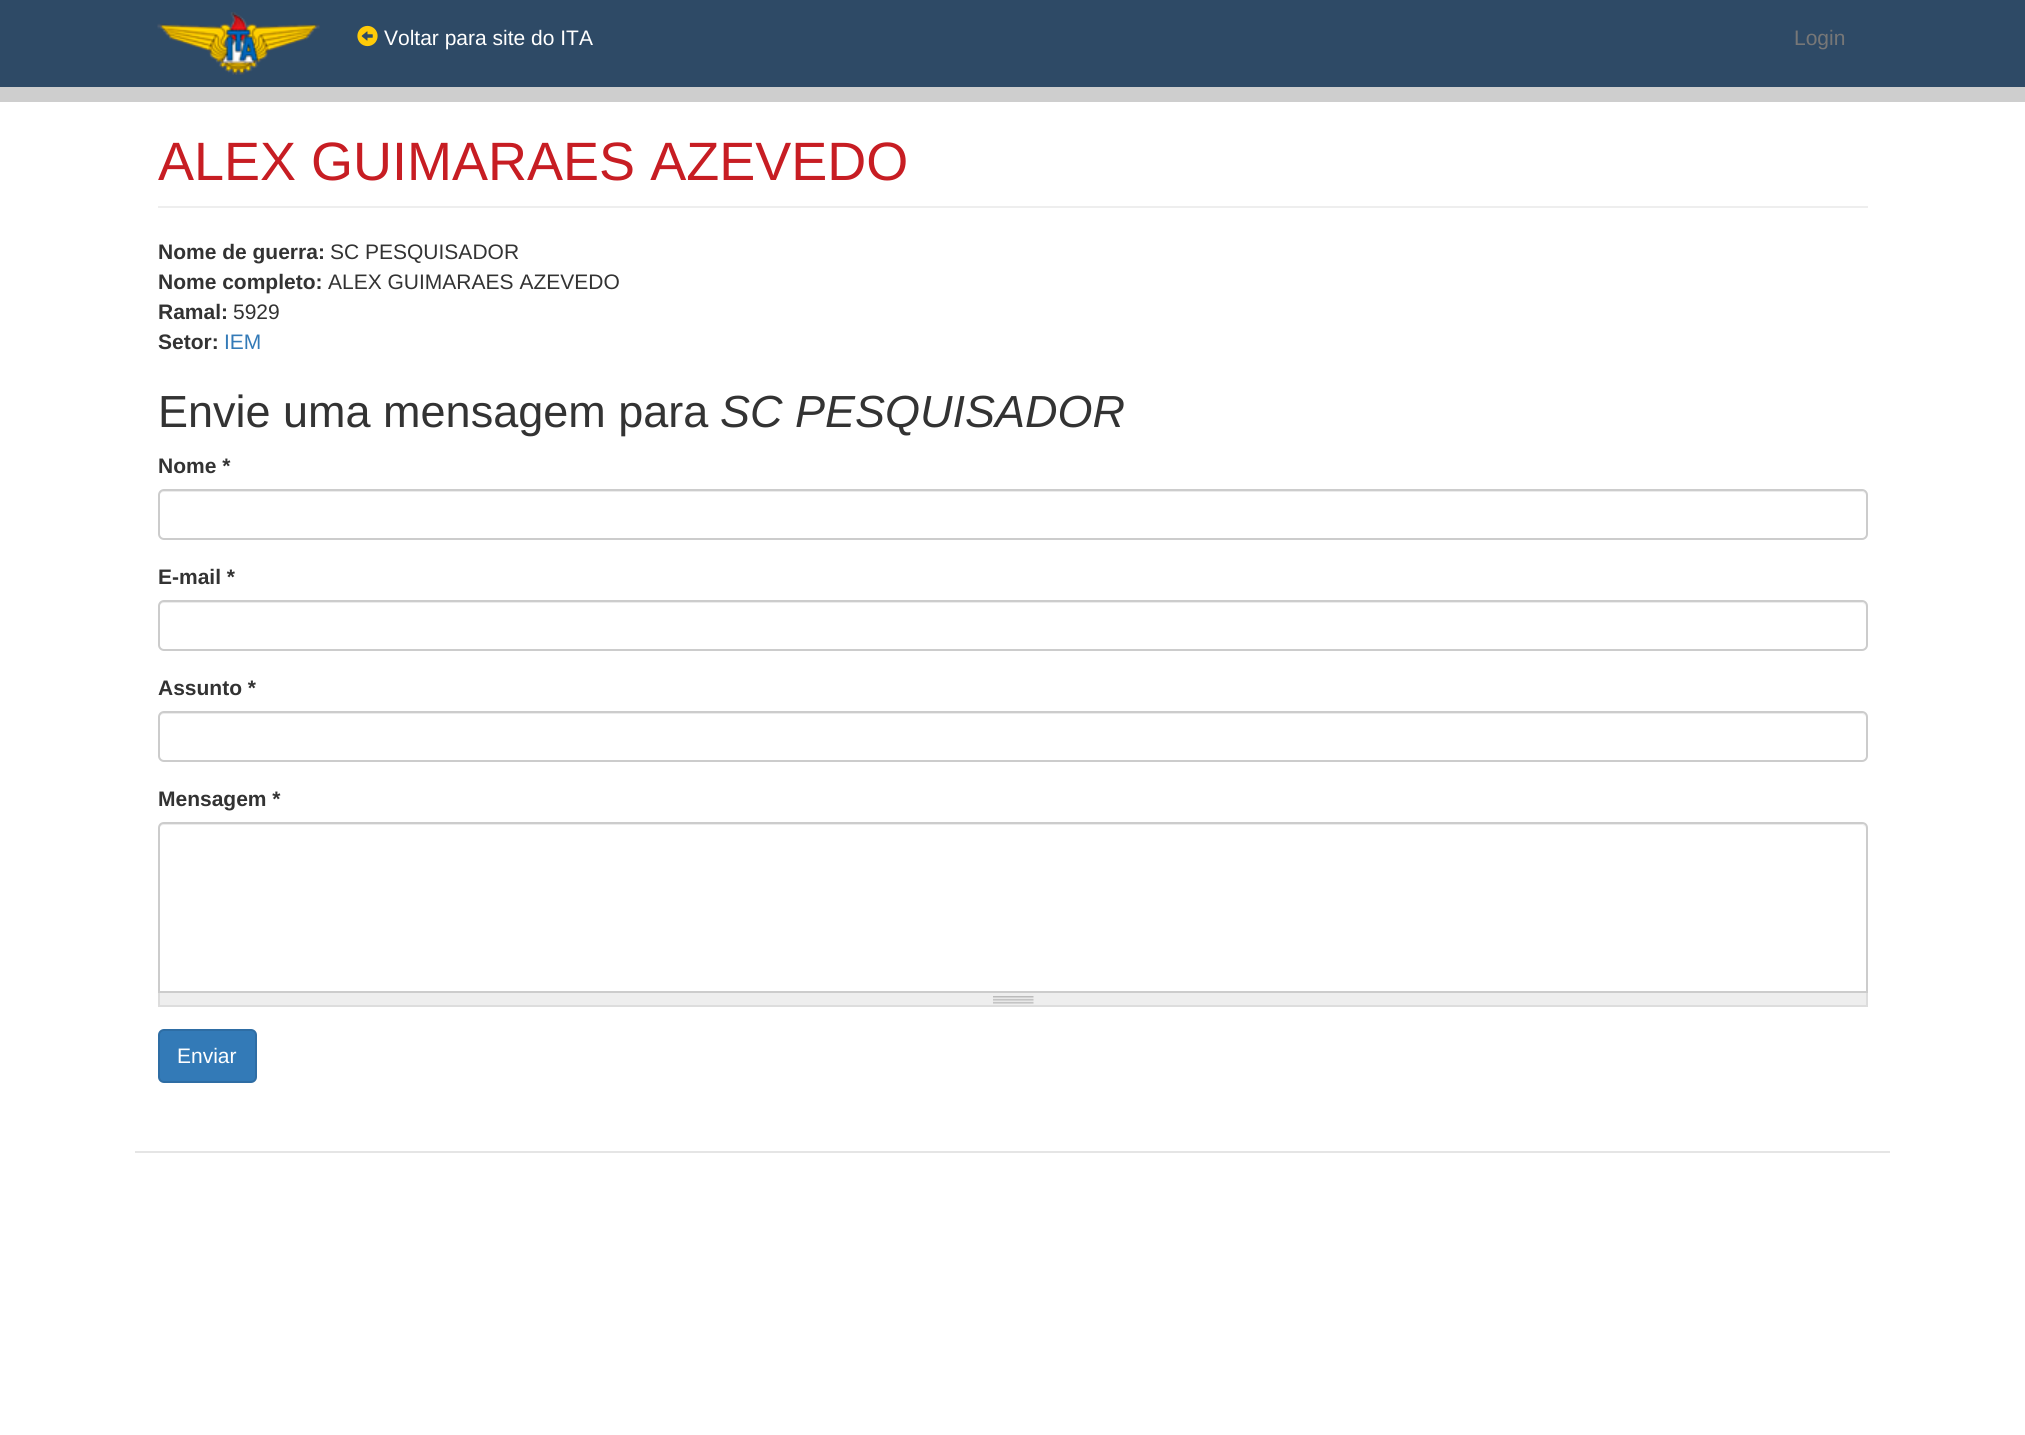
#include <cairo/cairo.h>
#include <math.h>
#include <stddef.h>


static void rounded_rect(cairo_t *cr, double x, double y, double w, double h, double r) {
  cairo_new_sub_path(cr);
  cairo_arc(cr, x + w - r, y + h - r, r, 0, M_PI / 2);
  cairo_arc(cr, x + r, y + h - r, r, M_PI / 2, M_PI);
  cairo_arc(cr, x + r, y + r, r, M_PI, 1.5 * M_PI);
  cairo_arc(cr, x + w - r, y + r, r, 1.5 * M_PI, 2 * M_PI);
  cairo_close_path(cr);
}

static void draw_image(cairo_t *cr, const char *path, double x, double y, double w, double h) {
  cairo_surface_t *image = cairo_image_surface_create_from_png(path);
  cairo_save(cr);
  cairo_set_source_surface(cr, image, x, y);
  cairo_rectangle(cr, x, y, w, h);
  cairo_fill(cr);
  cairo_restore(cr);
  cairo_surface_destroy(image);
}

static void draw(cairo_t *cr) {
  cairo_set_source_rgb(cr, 1, 1, 1);
  cairo_paint(cr);
  cairo_set_source_rgb(cr, 46 / 255.0, 74 / 255.0, 102 / 255.0);
  cairo_rectangle(cr, 0, 0, 2025, 87);
  cairo_fill(cr);
  cairo_set_source_rgb(cr, 206 / 255.0, 206 / 255.0, 206 / 255.0);
  cairo_rectangle(cr, 0, 87, 2025, 15);
  cairo_fill(cr);
  draw_image(cr, "images/1.png", 157, 12, 163, 63);
  draw_image(cr, "images/2.png", 357, 25, 21, 22);
  cairo_set_source_rgb(cr, 238 / 255.0, 238 / 255.0, 238 / 255.0);
  cairo_rectangle(cr, 158, 206, 1710, 2);
  cairo_fill(cr);
  cairo_set_source_rgb(cr, 236 / 255.0, 236 / 255.0, 236 / 255.0);
  cairo_new_path(cr);
  cairo_move_to(cr, 164, 492);
  cairo_line_to(cr, 1862, 492);
  cairo_curve_to(cr, 1864, 492, 1866, 494, 1866, 496);
  cairo_curve_to(cr, 1866, 493, 1864, 491, 1861, 491);
  cairo_line_to(cr, 164, 491);
  cairo_curve_to(cr, 161, 491, 159, 493, 159, 496);
  cairo_curve_to(cr, 159, 494, 161, 492, 164, 492);
  cairo_close_path(cr);
  cairo_fill(cr);
  rounded_rect(cr, 159, 490, 1708, 49, 5);
  cairo_set_source_rgb(cr, 204 / 255.0, 204 / 255.0, 204 / 255.0);
  cairo_stroke(cr);
  cairo_set_source_rgb(cr, 236 / 255.0, 236 / 255.0, 236 / 255.0);
  cairo_new_path(cr);
  cairo_move_to(cr, 164, 603);
  cairo_line_to(cr, 1862, 603);
  cairo_curve_to(cr, 1864, 603, 1866, 605, 1866, 608);
  cairo_line_to(cr, 1866, 607);
  cairo_curve_to(cr, 1866, 604, 1864, 602, 1861, 602);
  cairo_line_to(cr, 164, 602);
  cairo_curve_to(cr, 161, 602, 159, 604, 159, 607);
  cairo_line_to(cr, 159, 608);
  cairo_curve_to(cr, 159, 605, 161, 603, 164, 603);
  cairo_close_path(cr);
  cairo_fill(cr);
  rounded_rect(cr, 159, 601, 1708, 49, 5);
  cairo_set_source_rgb(cr, 204 / 255.0, 204 / 255.0, 204 / 255.0);
  cairo_stroke(cr);
  cairo_set_source_rgb(cr, 236 / 255.0, 236 / 255.0, 236 / 255.0);
  cairo_new_path(cr);
  cairo_move_to(cr, 164, 714);
  cairo_line_to(cr, 1862, 714);
  cairo_curve_to(cr, 1864, 714, 1866, 716, 1866, 718);
  cairo_curve_to(cr, 1866, 715, 1864, 713, 1861, 713);
  cairo_line_to(cr, 164, 713);
  cairo_curve_to(cr, 161, 713, 159, 715, 159, 718);
  cairo_curve_to(cr, 159, 716, 161, 714, 164, 714);
  cairo_close_path(cr);
  cairo_fill(cr);
  rounded_rect(cr, 159, 712, 1708, 49, 5);
  cairo_set_source_rgb(cr, 204 / 255.0, 204 / 255.0, 204 / 255.0);
  cairo_stroke(cr);
  cairo_set_source_rgb(cr, 236 / 255.0, 236 / 255.0, 236 / 255.0);
  cairo_new_path(cr);
  cairo_move_to(cr, 164, 825);
  cairo_line_to(cr, 1862, 825);
  cairo_curve_to(cr, 1864, 825, 1866, 827, 1866, 830);
  cairo_line_to(cr, 1866, 829);
  cairo_curve_to(cr, 1866, 826, 1864, 824, 1861, 824);
  cairo_line_to(cr, 164, 824);
  cairo_curve_to(cr, 161, 824, 159, 826, 159, 829);
  cairo_line_to(cr, 159, 830);
  cairo_curve_to(cr, 159, 827, 161, 825, 164, 825);
  cairo_close_path(cr);
  cairo_fill(cr);
  cairo_new_path(cr);
  cairo_move_to(cr, 164, 823);
  cairo_line_to(cr, 1862, 823);
  cairo_curve_to(cr, 1865, 823, 1867, 825, 1867, 828);
  cairo_line_to(cr, 1867, 992);
  cairo_line_to(cr, 159, 992);
  cairo_line_to(cr, 159, 828);
  cairo_curve_to(cr, 159, 825, 161, 823, 164, 823);
  cairo_close_path(cr);
  cairo_set_source_rgb(cr, 204 / 255.0, 204 / 255.0, 204 / 255.0);
  cairo_stroke(cr);
  cairo_set_source_rgb(cr, 238 / 255.0, 238 / 255.0, 238 / 255.0);
  cairo_rectangle(cr, 160, 993, 1706, 12);
  cairo_fill(cr);
  draw_image(cr, "images/3.png", 993, 996, 41, 8);
  cairo_set_source_rgb(cr, 221 / 255.0, 221 / 255.0, 221 / 255.0);
  cairo_rectangle(cr, 1866, 993, 2, 14);
  cairo_fill(cr);
  cairo_rectangle(cr, 158, 1005, 1710, 2);
  cairo_fill(cr);
  cairo_rectangle(cr, 158, 993, 2, 14);
  cairo_fill(cr);
  cairo_set_source_rgb(cr, 51 / 255.0, 122 / 255.0, 183 / 255.0);
  rounded_rect(cr, 159, 1030, 97, 52, 5);
  cairo_fill_preserve(cr);
  cairo_set_source_rgb(cr, 46 / 255.0, 109 / 255.0, 164 / 255.0);
  cairo_stroke(cr);
  cairo_set_source_rgb(cr, 229 / 255.0, 229 / 255.0, 229 / 255.0);
  cairo_rectangle(cr, 135, 1151, 1755, 2);
  cairo_fill(cr);
  cairo_select_font_face(cr, "Liberation Sans", CAIRO_FONT_SLANT_NORMAL, CAIRO_FONT_WEIGHT_NORMAL);
  cairo_set_font_size(cr, 21);
  cairo_set_source_rgb(cr, 1, 1, 1);
  cairo_move_to(cr, 384, 45);
  cairo_show_text(cr, "Voltar para site do ITA");
  cairo_set_source_rgb(cr, 119 / 255.0, 119 / 255.0, 119 / 255.0);
  cairo_move_to(cr, 1794, 45);
  cairo_show_text(cr, "Login");
  cairo_set_font_size(cr, 54);
  cairo_set_source_rgb(cr, 199 / 255.0, 29 / 255.0, 35 / 255.0);
  cairo_move_to(cr, 158, 180);
  cairo_show_text(cr, "ALEX GUIMARAES AZEVEDO");
  cairo_select_font_face(cr, "Liberation Sans", CAIRO_FONT_SLANT_NORMAL, CAIRO_FONT_WEIGHT_BOLD);
  cairo_set_font_size(cr, 21);
  cairo_set_source_rgb(cr, 51 / 255.0, 51 / 255.0, 51 / 255.0);
  cairo_move_to(cr, 158, 259);
  cairo_show_text(cr, "Nome de guerra:");
  cairo_select_font_face(cr, "Liberation Sans", CAIRO_FONT_SLANT_NORMAL, CAIRO_FONT_WEIGHT_NORMAL);
  cairo_move_to(cr, 330, 259);
  cairo_show_text(cr, "SC PESQUISADOR");
  cairo_select_font_face(cr, "Liberation Sans", CAIRO_FONT_SLANT_NORMAL, CAIRO_FONT_WEIGHT_BOLD);
  cairo_move_to(cr, 158, 289);
  cairo_show_text(cr, "Nome completo:");
  cairo_select_font_face(cr, "Liberation Sans", CAIRO_FONT_SLANT_NORMAL, CAIRO_FONT_WEIGHT_NORMAL);
  cairo_move_to(cr, 328, 289);
  cairo_show_text(cr, "ALEX GUIMARAES AZEVEDO");
  cairo_select_font_face(cr, "Liberation Sans", CAIRO_FONT_SLANT_NORMAL, CAIRO_FONT_WEIGHT_BOLD);
  cairo_move_to(cr, 158, 319);
  cairo_show_text(cr, "Ramal:");
  cairo_select_font_face(cr, "Liberation Sans", CAIRO_FONT_SLANT_NORMAL, CAIRO_FONT_WEIGHT_NORMAL);
  cairo_move_to(cr, 233, 319);
  cairo_show_text(cr, "5929");
  cairo_select_font_face(cr, "Liberation Sans", CAIRO_FONT_SLANT_NORMAL, CAIRO_FONT_WEIGHT_BOLD);
  cairo_move_to(cr, 158, 349);
  cairo_show_text(cr, "Setor:");
  cairo_select_font_face(cr, "Liberation Sans", CAIRO_FONT_SLANT_NORMAL, CAIRO_FONT_WEIGHT_NORMAL);
  cairo_set_source_rgb(cr, 51 / 255.0, 122 / 255.0, 183 / 255.0);
  cairo_move_to(cr, 224, 349);
  cairo_show_text(cr, "IEM");
  cairo_set_font_size(cr, 45);
  cairo_set_source_rgb(cr, 51 / 255.0, 51 / 255.0, 51 / 255.0);
  cairo_move_to(cr, 158, 427);
  cairo_show_text(cr, "Envie uma mensagem para");
  cairo_select_font_face(cr, "Liberation Sans", CAIRO_FONT_SLANT_ITALIC, CAIRO_FONT_WEIGHT_NORMAL);
  cairo_move_to(cr, 720, 427);
  cairo_show_text(cr, "SC PESQUISADOR");
  cairo_select_font_face(cr, "Liberation Sans", CAIRO_FONT_SLANT_NORMAL, CAIRO_FONT_WEIGHT_BOLD);
  cairo_set_font_size(cr, 21);
  cairo_move_to(cr, 158, 473);
  cairo_show_text(cr, "Nome *");
  cairo_move_to(cr, 158, 584);
  cairo_show_text(cr, "E-mail *");
  cairo_move_to(cr, 158, 695);
  cairo_show_text(cr, "Assunto *");
  cairo_move_to(cr, 158, 806);
  cairo_show_text(cr, "Mensagem *");
  cairo_select_font_face(cr, "Liberation Sans", CAIRO_FONT_SLANT_NORMAL, CAIRO_FONT_WEIGHT_NORMAL);
  cairo_set_source_rgb(cr, 1, 1, 1);
  cairo_move_to(cr, 177, 1063);
  cairo_show_text(cr, "Enviar");
}

int main(void) {
  cairo_surface_t *surface = cairo_image_surface_create(CAIRO_FORMAT_RGB24, 2025, 1435);
  cairo_t *cr = cairo_create(surface);
  cairo_font_options_t *options = cairo_font_options_create();
  cairo_font_options_set_hint_metrics(options, CAIRO_HINT_METRICS_OFF);
  cairo_font_options_set_hint_style(options, CAIRO_HINT_STYLE_NONE);
  cairo_set_font_options(cr, options);
  cairo_set_miter_limit(cr, 4);
  draw(cr);
  cairo_surface_write_to_png(surface, "out.png");
  cairo_font_options_destroy(options);
  cairo_destroy(cr);
  cairo_surface_destroy(surface);
  return 0;
}
